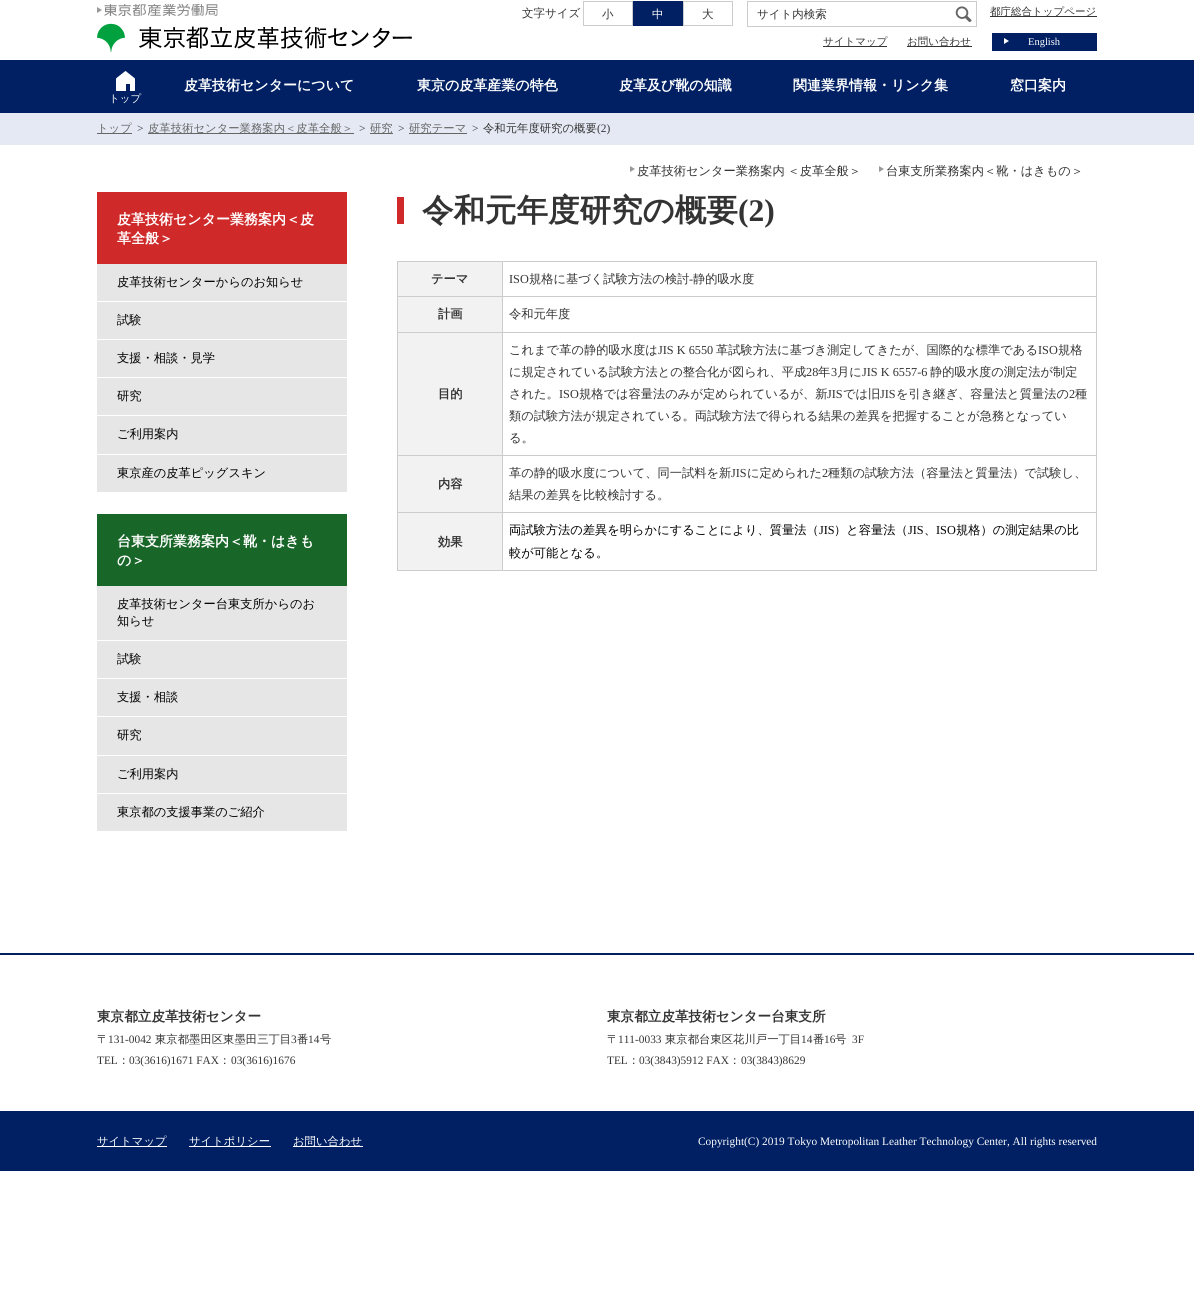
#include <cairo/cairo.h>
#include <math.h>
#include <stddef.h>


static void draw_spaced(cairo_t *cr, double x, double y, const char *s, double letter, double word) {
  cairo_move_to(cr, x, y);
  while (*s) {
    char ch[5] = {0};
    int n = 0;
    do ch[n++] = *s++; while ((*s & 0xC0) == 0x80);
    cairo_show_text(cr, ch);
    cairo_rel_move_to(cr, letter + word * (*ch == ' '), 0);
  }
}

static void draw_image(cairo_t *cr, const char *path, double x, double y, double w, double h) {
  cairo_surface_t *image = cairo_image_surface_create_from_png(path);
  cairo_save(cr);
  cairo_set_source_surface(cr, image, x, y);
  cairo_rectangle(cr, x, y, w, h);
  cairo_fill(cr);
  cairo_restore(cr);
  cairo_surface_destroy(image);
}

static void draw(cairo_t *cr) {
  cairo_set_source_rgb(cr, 1, 1, 1);
  cairo_paint(cr);
  cairo_set_source_rgb(cr, 51 / 255.0, 51 / 255.0, 51 / 255.0);
  cairo_rectangle(cr, 990, 16, 107, 1);
  cairo_fill(cr);
  cairo_rectangle(cr, 823, 46, 64, 1);
  cairo_fill(cr);
  cairo_rectangle(cr, 907, 46, 65, 1);
  cairo_fill(cr);
  cairo_set_source_rgb(cr, 0, 32 / 255.0, 99 / 255.0);
  cairo_rectangle(cr, 992, 33, 105, 18);
  cairo_fill(cr);
  cairo_set_source_rgb(cr, 1, 1, 1);
  cairo_new_path(cr);
  cairo_move_to(cr, 1004, 44);
  cairo_line_to(cr, 1004, 38);
  cairo_line_to(cr, 1009, 41);
  cairo_close_path(cr);
  cairo_fill(cr);
  cairo_set_source_rgb(cr, 0, 32 / 255.0, 99 / 255.0);
  cairo_rectangle(cr, 0, 60, 1194, 53);
  cairo_fill(cr);
  draw_image(cr, "images/1.png", 116, 71, 19, 20);
  cairo_set_source_rgb(cr, 153 / 255.0, 153 / 255.0, 153 / 255.0);
  cairo_new_path(cr);
  cairo_move_to(cr, 97, 13);
  cairo_line_to(cr, 97, 7);
  cairo_line_to(cr, 102, 10);
  cairo_close_path(cr);
  cairo_fill(cr);
  draw_image(cr, "images/2.png", 104, 4, 114, 12);
  draw_image(cr, "images/3.png", 97, 23, 315, 29);
  cairo_rectangle(cr, 583.5, 1.5, 49, 24);
  cairo_set_source_rgb(cr, 204 / 255.0, 204 / 255.0, 204 / 255.0);
  cairo_set_line_width(cr, 1);
  cairo_stroke(cr);
  cairo_set_source_rgb(cr, 0, 32 / 255.0, 99 / 255.0);
  cairo_rectangle(cr, 633, 1, 50, 25);
  cairo_fill(cr);
  cairo_rectangle(cr, 683.5, 1.5, 49, 24);
  cairo_set_source_rgb(cr, 204 / 255.0, 204 / 255.0, 204 / 255.0);
  cairo_stroke(cr);
  cairo_rectangle(cr, 747.5, 1.5, 229, 25);
  cairo_stroke(cr);
  draw_image(cr, "images/4.png", 955, 6, 17, 17);
  cairo_set_source_rgb(cr, 228 / 255.0, 233 / 255.0, 244 / 255.0);
  cairo_rectangle(cr, 0, 113, 1194, 32);
  cairo_fill(cr);
  cairo_set_source_rgb(cr, 102 / 255.0, 102 / 255.0, 102 / 255.0);
  cairo_rectangle(cr, 97, 133, 35, 1);
  cairo_fill(cr);
  cairo_rectangle(cr, 148, 133, 206, 1);
  cairo_fill(cr);
  cairo_rectangle(cr, 370, 133, 23, 1);
  cairo_fill(cr);
  cairo_rectangle(cr, 409, 133, 58, 1);
  cairo_fill(cr);
  cairo_set_source_rgb(cr, 153 / 255.0, 153 / 255.0, 153 / 255.0);
  cairo_new_path(cr);
  cairo_move_to(cr, 630, 172);
  cairo_line_to(cr, 630, 166);
  cairo_line_to(cr, 635, 169);
  cairo_close_path(cr);
  cairo_fill(cr);
  cairo_new_path(cr);
  cairo_move_to(cr, 879, 172);
  cairo_line_to(cr, 879, 166);
  cairo_line_to(cr, 884, 169);
  cairo_close_path(cr);
  cairo_fill(cr);
  cairo_set_source_rgb(cr, 207 / 255.0, 41 / 255.0, 41 / 255.0);
  cairo_rectangle(cr, 97, 192, 250, 72);
  cairo_fill(cr);
  cairo_set_source_rgb(cr, 230 / 255.0, 230 / 255.0, 230 / 255.0);
  cairo_rectangle(cr, 97, 264, 250, 228);
  cairo_fill(cr);
  cairo_set_source_rgb(cr, 1, 1, 1);
  cairo_rectangle(cr, 97, 301, 250, 1);
  cairo_fill(cr);
  cairo_rectangle(cr, 97, 339, 250, 1);
  cairo_fill(cr);
  cairo_rectangle(cr, 97, 377, 250, 1);
  cairo_fill(cr);
  cairo_rectangle(cr, 97, 415, 250, 1);
  cairo_fill(cr);
  cairo_rectangle(cr, 97, 454, 250, 1);
  cairo_fill(cr);
  cairo_set_source_rgb(cr, 25 / 255.0, 102 / 255.0, 41 / 255.0);
  cairo_rectangle(cr, 97, 514, 250, 72);
  cairo_fill(cr);
  cairo_set_source_rgb(cr, 230 / 255.0, 230 / 255.0, 230 / 255.0);
  cairo_rectangle(cr, 97, 586, 250, 245);
  cairo_fill(cr);
  cairo_set_source_rgb(cr, 1, 1, 1);
  cairo_rectangle(cr, 97, 640, 250, 1);
  cairo_fill(cr);
  cairo_rectangle(cr, 97, 678, 250, 1);
  cairo_fill(cr);
  cairo_rectangle(cr, 97, 716, 250, 1);
  cairo_fill(cr);
  cairo_rectangle(cr, 97, 755, 250, 1);
  cairo_fill(cr);
  cairo_rectangle(cr, 97, 793, 250, 1);
  cairo_fill(cr);
  cairo_set_source_rgb(cr, 207 / 255.0, 41 / 255.0, 41 / 255.0);
  cairo_rectangle(cr, 397, 197, 7, 27);
  cairo_fill(cr);
  cairo_set_source_rgb(cr, 204 / 255.0, 204 / 255.0, 204 / 255.0);
  cairo_rectangle(cr, 1096, 261, 1, 310);
  cairo_fill(cr);
  cairo_rectangle(cr, 397, 570, 700, 1);
  cairo_fill(cr);
  cairo_set_source_rgb(cr, 242 / 255.0, 242 / 255.0, 242 / 255.0);
  cairo_rectangle(cr, 398, 262, 104, 34);
  cairo_fill(cr);
  cairo_set_source_rgb(cr, 204 / 255.0, 204 / 255.0, 204 / 255.0);
  cairo_rectangle(cr, 502, 261, 595, 1);
  cairo_fill(cr);
  cairo_rectangle(cr, 502, 296, 595, 1);
  cairo_fill(cr);
  cairo_rectangle(cr, 502, 332, 595, 1);
  cairo_fill(cr);
  cairo_rectangle(cr, 502, 455, 595, 1);
  cairo_fill(cr);
  cairo_rectangle(cr, 502, 512, 595, 1);
  cairo_fill(cr);
  cairo_rectangle(cr, 502, 512, 1, 59);
  cairo_fill(cr);
  cairo_rectangle(cr, 397, 512, 106, 1);
  cairo_fill(cr);
  cairo_rectangle(cr, 502, 455, 1, 58);
  cairo_fill(cr);
  cairo_rectangle(cr, 397, 455, 106, 1);
  cairo_fill(cr);
  cairo_rectangle(cr, 502, 332, 1, 124);
  cairo_fill(cr);
  cairo_rectangle(cr, 397, 332, 106, 1);
  cairo_fill(cr);
  cairo_rectangle(cr, 502, 296, 1, 37);
  cairo_fill(cr);
  cairo_rectangle(cr, 397, 296, 106, 1);
  cairo_fill(cr);
  cairo_rectangle(cr, 502, 261, 1, 36);
  cairo_fill(cr);
  cairo_rectangle(cr, 397, 261, 106, 1);
  cairo_fill(cr);
  cairo_rectangle(cr, 397, 512, 1, 59);
  cairo_fill(cr);
  cairo_rectangle(cr, 397, 455, 1, 58);
  cairo_fill(cr);
  cairo_rectangle(cr, 397, 332, 1, 124);
  cairo_fill(cr);
  cairo_rectangle(cr, 397, 296, 1, 37);
  cairo_fill(cr);
  cairo_rectangle(cr, 397, 261, 1, 36);
  cairo_fill(cr);
  cairo_set_source_rgb(cr, 242 / 255.0, 242 / 255.0, 242 / 255.0);
  cairo_rectangle(cr, 398, 297, 104, 35);
  cairo_fill(cr);
  cairo_rectangle(cr, 398, 333, 104, 122);
  cairo_fill(cr);
  cairo_rectangle(cr, 398, 456, 104, 56);
  cairo_fill(cr);
  cairo_rectangle(cr, 398, 513, 104, 57);
  cairo_fill(cr);
  cairo_set_source_rgb(cr, 0, 32 / 255.0, 99 / 255.0);
  cairo_rectangle(cr, 0, 953, 1194, 2);
  cairo_fill(cr);
  cairo_rectangle(cr, 0, 1111, 1194, 60);
  cairo_fill(cr);
  cairo_set_source_rgb(cr, 1, 1, 1);
  cairo_rectangle(cr, 97, 1146, 70, 1);
  cairo_fill(cr);
  cairo_rectangle(cr, 189, 1146, 82, 1);
  cairo_fill(cr);
  cairo_rectangle(cr, 293, 1146, 70, 1);
  cairo_fill(cr);
  cairo_select_font_face(cr, "WenQuanYi Zen Hei Medium", CAIRO_FONT_SLANT_NORMAL, CAIRO_FONT_WEIGHT_NORMAL);
  cairo_set_font_size(cr, 10.5);
  cairo_set_source_rgb(cr, 51 / 255.0, 51 / 255.0, 51 / 255.0);
  cairo_move_to(cr, 990, 15);
  cairo_show_text(cr, "都庁総合トップページ");
  cairo_move_to(cr, 823, 45);
  cairo_show_text(cr, "サイトマップ");
  cairo_move_to(cr, 907, 45);
  cairo_show_text(cr, "お問い合わせ");
  cairo_select_font_face(cr, "Liberation Serif", CAIRO_FONT_SLANT_NORMAL, CAIRO_FONT_WEIGHT_NORMAL);
  cairo_set_source_rgb(cr, 1, 1, 1);
  cairo_move_to(cr, 1028, 45);
  cairo_show_text(cr, "English");
  cairo_select_font_face(cr, "WenQuanYi Zen Hei", CAIRO_FONT_SLANT_NORMAL, CAIRO_FONT_WEIGHT_BOLD);
  cairo_set_font_size(cr, 14);
  cairo_move_to(cr, 184, 90);
  cairo_show_text(cr, "皮革技術センターについて");
  cairo_move_to(cr, 417, 90);
  cairo_show_text(cr, "東京の皮革産業の特色");
  cairo_move_to(cr, 619, 90);
  cairo_show_text(cr, "皮革及び靴の知識");
  cairo_move_to(cr, 793, 90);
  cairo_show_text(cr, "関連業界情報・リンク集");
  cairo_move_to(cr, 1010, 90);
  cairo_show_text(cr, "窓口案内");
  cairo_select_font_face(cr, "WenQuanYi Zen Hei Medium", CAIRO_FONT_SLANT_NORMAL, CAIRO_FONT_WEIGHT_NORMAL);
  cairo_set_font_size(cr, 10.5);
  cairo_move_to(cr, 109, 102);
  cairo_show_text(cr, "トップ");
  cairo_set_font_size(cr, 11.5);
  cairo_set_source_rgb(cr, 51 / 255.0, 51 / 255.0, 51 / 255.0);
  cairo_move_to(cr, 522, 17);
  cairo_show_text(cr, "文字サイズ");
  cairo_move_to(cr, 602, 18);
  cairo_show_text(cr, "小");
  cairo_set_source_rgb(cr, 1, 1, 1);
  cairo_move_to(cr, 652, 18);
  cairo_show_text(cr, "中");
  cairo_set_source_rgb(cr, 51 / 255.0, 51 / 255.0, 51 / 255.0);
  cairo_move_to(cr, 702, 18);
  cairo_show_text(cr, "大");
  cairo_move_to(cr, 757, 18);
  cairo_show_text(cr, "サイト内検索");
  cairo_set_font_size(cr, 11.35);
  cairo_set_source_rgb(cr, 102 / 255.0, 102 / 255.0, 102 / 255.0);
  cairo_move_to(cr, 97, 132);
  cairo_show_text(cr, "トップ");
  cairo_select_font_face(cr, "Liberation Serif", CAIRO_FONT_SLANT_NORMAL, CAIRO_FONT_WEIGHT_NORMAL);
  cairo_set_source_rgb(cr, 51 / 255.0, 51 / 255.0, 51 / 255.0);
  cairo_move_to(cr, 137, 132);
  cairo_show_text(cr, ">");
  cairo_select_font_face(cr, "WenQuanYi Zen Hei Medium", CAIRO_FONT_SLANT_NORMAL, CAIRO_FONT_WEIGHT_NORMAL);
  cairo_set_source_rgb(cr, 102 / 255.0, 102 / 255.0, 102 / 255.0);
  cairo_move_to(cr, 148, 132);
  cairo_show_text(cr, "皮革技術センター業務案内＜皮革全般＞");
  cairo_select_font_face(cr, "Liberation Serif", CAIRO_FONT_SLANT_NORMAL, CAIRO_FONT_WEIGHT_NORMAL);
  cairo_set_source_rgb(cr, 51 / 255.0, 51 / 255.0, 51 / 255.0);
  cairo_move_to(cr, 359, 132);
  cairo_show_text(cr, ">");
  cairo_select_font_face(cr, "WenQuanYi Zen Hei Medium", CAIRO_FONT_SLANT_NORMAL, CAIRO_FONT_WEIGHT_NORMAL);
  cairo_set_source_rgb(cr, 102 / 255.0, 102 / 255.0, 102 / 255.0);
  cairo_move_to(cr, 370, 132);
  cairo_show_text(cr, "研究");
  cairo_select_font_face(cr, "Liberation Serif", CAIRO_FONT_SLANT_NORMAL, CAIRO_FONT_WEIGHT_NORMAL);
  cairo_set_source_rgb(cr, 51 / 255.0, 51 / 255.0, 51 / 255.0);
  cairo_move_to(cr, 398, 132);
  cairo_show_text(cr, ">");
  cairo_select_font_face(cr, "WenQuanYi Zen Hei Medium", CAIRO_FONT_SLANT_NORMAL, CAIRO_FONT_WEIGHT_NORMAL);
  cairo_set_source_rgb(cr, 102 / 255.0, 102 / 255.0, 102 / 255.0);
  cairo_move_to(cr, 409, 132);
  cairo_show_text(cr, "研究テーマ");
  cairo_select_font_face(cr, "Liberation Serif", CAIRO_FONT_SLANT_NORMAL, CAIRO_FONT_WEIGHT_NORMAL);
  cairo_set_source_rgb(cr, 51 / 255.0, 51 / 255.0, 51 / 255.0);
  cairo_move_to(cr, 472, 132);
  cairo_show_text(cr, ">");
  cairo_select_font_face(cr, "WenQuanYi Zen Hei Medium", CAIRO_FONT_SLANT_NORMAL, CAIRO_FONT_WEIGHT_NORMAL);
  cairo_move_to(cr, 483, 132);
  cairo_show_text(cr, "令和元年度研究の概要");
  cairo_select_font_face(cr, "Liberation Serif", CAIRO_FONT_SLANT_NORMAL, CAIRO_FONT_WEIGHT_NORMAL);
  cairo_move_to(cr, 597, 132);
  cairo_show_text(cr, "(2)");
  cairo_select_font_face(cr, "WenQuanYi Zen Hei Medium", CAIRO_FONT_SLANT_NORMAL, CAIRO_FONT_WEIGHT_NORMAL);
  cairo_set_font_size(cr, 12.25);
  draw_spaced(cr, 637, 175, "皮革技術センター業務案内 ＜皮革全般＞", 0, -1);
  cairo_move_to(cr, 886, 175);
  cairo_show_text(cr, "台東支所業務案内＜靴・はきもの＞");
  cairo_select_font_face(cr, "WenQuanYi Zen Hei", CAIRO_FONT_SLANT_NORMAL, CAIRO_FONT_WEIGHT_BOLD);
  cairo_set_font_size(cr, 14);
  cairo_set_source_rgb(cr, 1, 1, 1);
  cairo_move_to(cr, 117, 224);
  cairo_show_text(cr, "皮革技術センター業務案内＜皮");
  cairo_move_to(cr, 117, 243);
  cairo_show_text(cr, "革全般＞");
  cairo_select_font_face(cr, "WenQuanYi Zen Hei Medium", CAIRO_FONT_SLANT_NORMAL, CAIRO_FONT_WEIGHT_NORMAL);
  cairo_set_font_size(cr, 12.25);
  cairo_set_source_rgb(cr, 0, 0, 0);
  cairo_move_to(cr, 117, 286);
  cairo_show_text(cr, "皮革技術センターからのお知らせ");
  cairo_move_to(cr, 117, 324);
  cairo_show_text(cr, "試験");
  cairo_move_to(cr, 117, 362);
  cairo_show_text(cr, "支援・相談・見学");
  cairo_move_to(cr, 117, 400);
  cairo_show_text(cr, "研究");
  cairo_move_to(cr, 117, 438);
  cairo_show_text(cr, "ご利用案内");
  cairo_move_to(cr, 117, 477);
  cairo_show_text(cr, "東京産の皮革ピッグスキン");
  cairo_select_font_face(cr, "WenQuanYi Zen Hei", CAIRO_FONT_SLANT_NORMAL, CAIRO_FONT_WEIGHT_BOLD);
  cairo_set_font_size(cr, 14);
  cairo_set_source_rgb(cr, 1, 1, 1);
  cairo_move_to(cr, 117, 546);
  cairo_show_text(cr, "台東支所業務案内＜靴・はきも");
  cairo_move_to(cr, 117, 565);
  cairo_show_text(cr, "の＞");
  cairo_select_font_face(cr, "WenQuanYi Zen Hei Medium", CAIRO_FONT_SLANT_NORMAL, CAIRO_FONT_WEIGHT_NORMAL);
  cairo_set_font_size(cr, 12.25);
  cairo_set_source_rgb(cr, 0, 0, 0);
  cairo_move_to(cr, 117, 608);
  cairo_show_text(cr, "皮革技術センター台東支所からのお");
  cairo_move_to(cr, 117, 625);
  cairo_show_text(cr, "知らせ");
  cairo_move_to(cr, 117, 663);
  cairo_show_text(cr, "試験");
  cairo_move_to(cr, 117, 701);
  cairo_show_text(cr, "支援・相談");
  cairo_move_to(cr, 117, 739);
  cairo_show_text(cr, "研究");
  cairo_move_to(cr, 117, 778);
  cairo_show_text(cr, "ご利用案内");
  cairo_move_to(cr, 117, 816);
  cairo_show_text(cr, "東京都の支援事業のご紹介");
  cairo_select_font_face(cr, "WenQuanYi Zen Hei", CAIRO_FONT_SLANT_NORMAL, CAIRO_FONT_WEIGHT_BOLD);
  cairo_set_font_size(cr, 31.5);
  cairo_set_source_rgb(cr, 51 / 255.0, 51 / 255.0, 51 / 255.0);
  cairo_move_to(cr, 422, 221);
  cairo_show_text(cr, "令和元年度研究の概要");
  cairo_select_font_face(cr, "Liberation Serif", CAIRO_FONT_SLANT_NORMAL, CAIRO_FONT_WEIGHT_BOLD);
  cairo_move_to(cr, 738, 221);
  cairo_show_text(cr, "(2)");
  cairo_select_font_face(cr, "WenQuanYi Zen Hei", CAIRO_FONT_SLANT_NORMAL, CAIRO_FONT_WEIGHT_BOLD);
  cairo_set_font_size(cr, 12.25);
  cairo_move_to(cr, 431, 283);
  cairo_show_text(cr, "テーマ");
  cairo_select_font_face(cr, "Liberation Serif", CAIRO_FONT_SLANT_NORMAL, CAIRO_FONT_WEIGHT_NORMAL);
  cairo_move_to(cr, 509, 283);
  cairo_show_text(cr, "ISO");
  cairo_select_font_face(cr, "WenQuanYi Zen Hei Medium", CAIRO_FONT_SLANT_NORMAL, CAIRO_FONT_WEIGHT_NORMAL);
  cairo_move_to(cr, 529, 283);
  cairo_show_text(cr, "規格に基づく試験方法の検討");
  cairo_select_font_face(cr, "Liberation Serif", CAIRO_FONT_SLANT_NORMAL, CAIRO_FONT_WEIGHT_NORMAL);
  cairo_move_to(cr, 689, 283);
  cairo_show_text(cr, "-");
  cairo_select_font_face(cr, "WenQuanYi Zen Hei Medium", CAIRO_FONT_SLANT_NORMAL, CAIRO_FONT_WEIGHT_NORMAL);
  cairo_move_to(cr, 693, 283);
  cairo_show_text(cr, "静的吸水度");
  cairo_select_font_face(cr, "WenQuanYi Zen Hei", CAIRO_FONT_SLANT_NORMAL, CAIRO_FONT_WEIGHT_BOLD);
  cairo_move_to(cr, 438, 318);
  cairo_show_text(cr, "計画");
  cairo_select_font_face(cr, "WenQuanYi Zen Hei Medium", CAIRO_FONT_SLANT_NORMAL, CAIRO_FONT_WEIGHT_NORMAL);
  cairo_move_to(cr, 509, 318);
  cairo_show_text(cr, "令和元年度");
  cairo_select_font_face(cr, "WenQuanYi Zen Hei", CAIRO_FONT_SLANT_NORMAL, CAIRO_FONT_WEIGHT_BOLD);
  cairo_move_to(cr, 438, 398);
  cairo_show_text(cr, "目的");
  cairo_select_font_face(cr, "WenQuanYi Zen Hei Medium", CAIRO_FONT_SLANT_NORMAL, CAIRO_FONT_WEIGHT_NORMAL);
  cairo_move_to(cr, 509, 354);
  cairo_show_text(cr, "これまで革の静的吸水度は");
  cairo_select_font_face(cr, "Liberation Serif", CAIRO_FONT_SLANT_NORMAL, CAIRO_FONT_WEIGHT_NORMAL);
  cairo_move_to(cr, 658, 354);
  cairo_show_text(cr, "JIS K 6550");
  cairo_select_font_face(cr, "WenQuanYi Zen Hei Medium", CAIRO_FONT_SLANT_NORMAL, CAIRO_FONT_WEIGHT_NORMAL);
  cairo_move_to(cr, 716, 354);
  cairo_show_text(cr, "革試験方法に基づき測定してきたが、国際的な標準である");
  cairo_select_font_face(cr, "Liberation Serif", CAIRO_FONT_SLANT_NORMAL, CAIRO_FONT_WEIGHT_NORMAL);
  cairo_move_to(cr, 1038, 354);
  cairo_show_text(cr, "ISO");
  cairo_select_font_face(cr, "WenQuanYi Zen Hei Medium", CAIRO_FONT_SLANT_NORMAL, CAIRO_FONT_WEIGHT_NORMAL);
  cairo_move_to(cr, 1058, 354);
  cairo_show_text(cr, "規格");
  cairo_move_to(cr, 509, 376);
  cairo_show_text(cr, "に規定されている試験方法との整合化が図られ、平成");
  cairo_select_font_face(cr, "Liberation Serif", CAIRO_FONT_SLANT_NORMAL, CAIRO_FONT_WEIGHT_NORMAL);
  cairo_move_to(cr, 806, 376);
  cairo_show_text(cr, "28");
  cairo_select_font_face(cr, "WenQuanYi Zen Hei Medium", CAIRO_FONT_SLANT_NORMAL, CAIRO_FONT_WEIGHT_NORMAL);
  cairo_move_to(cr, 818, 376);
  cairo_show_text(cr, "年");
  cairo_select_font_face(cr, "Liberation Serif", CAIRO_FONT_SLANT_NORMAL, CAIRO_FONT_WEIGHT_NORMAL);
  cairo_move_to(cr, 831, 376);
  cairo_show_text(cr, "3");
  cairo_select_font_face(cr, "WenQuanYi Zen Hei Medium", CAIRO_FONT_SLANT_NORMAL, CAIRO_FONT_WEIGHT_NORMAL);
  cairo_move_to(cr, 837, 376);
  cairo_show_text(cr, "月に");
  cairo_select_font_face(cr, "Liberation Serif", CAIRO_FONT_SLANT_NORMAL, CAIRO_FONT_WEIGHT_NORMAL);
  cairo_move_to(cr, 862, 376);
  cairo_show_text(cr, "JIS K 6557-6");
  cairo_select_font_face(cr, "WenQuanYi Zen Hei Medium", CAIRO_FONT_SLANT_NORMAL, CAIRO_FONT_WEIGHT_NORMAL);
  cairo_move_to(cr, 930, 376);
  cairo_show_text(cr, "静的吸水度の測定法が制定");
  cairo_move_to(cr, 509, 398);
  cairo_show_text(cr, "された。");
  cairo_select_font_face(cr, "Liberation Serif", CAIRO_FONT_SLANT_NORMAL, CAIRO_FONT_WEIGHT_NORMAL);
  cairo_move_to(cr, 559, 398);
  cairo_show_text(cr, "ISO");
  cairo_select_font_face(cr, "WenQuanYi Zen Hei Medium", CAIRO_FONT_SLANT_NORMAL, CAIRO_FONT_WEIGHT_NORMAL);
  cairo_move_to(cr, 579, 398);
  cairo_show_text(cr, "規格では容量法のみが定められているが、新");
  cairo_select_font_face(cr, "Liberation Serif", CAIRO_FONT_SLANT_NORMAL, CAIRO_FONT_WEIGHT_NORMAL);
  cairo_move_to(cr, 827, 398);
  cairo_show_text(cr, "JIS");
  cairo_select_font_face(cr, "WenQuanYi Zen Hei Medium", CAIRO_FONT_SLANT_NORMAL, CAIRO_FONT_WEIGHT_NORMAL);
  cairo_move_to(cr, 843, 398);
  cairo_show_text(cr, "では旧");
  cairo_select_font_face(cr, "Liberation Serif", CAIRO_FONT_SLANT_NORMAL, CAIRO_FONT_WEIGHT_NORMAL);
  cairo_move_to(cr, 880, 398);
  cairo_show_text(cr, "JIS");
  cairo_select_font_face(cr, "WenQuanYi Zen Hei Medium", CAIRO_FONT_SLANT_NORMAL, CAIRO_FONT_WEIGHT_NORMAL);
  cairo_move_to(cr, 896, 398);
  cairo_show_text(cr, "を引き継ぎ、容量法と質量法の");
  cairo_select_font_face(cr, "Liberation Serif", CAIRO_FONT_SLANT_NORMAL, CAIRO_FONT_WEIGHT_NORMAL);
  cairo_move_to(cr, 1069, 398);
  cairo_show_text(cr, "2");
  cairo_select_font_face(cr, "WenQuanYi Zen Hei Medium", CAIRO_FONT_SLANT_NORMAL, CAIRO_FONT_WEIGHT_NORMAL);
  cairo_move_to(cr, 1075, 398);
  cairo_show_text(cr, "種");
  cairo_move_to(cr, 509, 420);
  cairo_show_text(cr, "類の試験方法が規定されている。両試験方法で得られる結果の差異を把握することが急務となってい");
  cairo_move_to(cr, 509, 442);
  cairo_show_text(cr, "る。");
  cairo_select_font_face(cr, "WenQuanYi Zen Hei", CAIRO_FONT_SLANT_NORMAL, CAIRO_FONT_WEIGHT_BOLD);
  cairo_move_to(cr, 438, 488);
  cairo_show_text(cr, "内容");
  cairo_select_font_face(cr, "WenQuanYi Zen Hei Medium", CAIRO_FONT_SLANT_NORMAL, CAIRO_FONT_WEIGHT_NORMAL);
  cairo_move_to(cr, 509, 477);
  cairo_show_text(cr, "革の静的吸水度について、同一試料を新");
  cairo_select_font_face(cr, "Liberation Serif", CAIRO_FONT_SLANT_NORMAL, CAIRO_FONT_WEIGHT_NORMAL);
  cairo_move_to(cr, 731, 477);
  cairo_show_text(cr, "JIS");
  cairo_select_font_face(cr, "WenQuanYi Zen Hei Medium", CAIRO_FONT_SLANT_NORMAL, CAIRO_FONT_WEIGHT_NORMAL);
  cairo_move_to(cr, 747, 477);
  cairo_show_text(cr, "に定められた");
  cairo_select_font_face(cr, "Liberation Serif", CAIRO_FONT_SLANT_NORMAL, CAIRO_FONT_WEIGHT_NORMAL);
  cairo_move_to(cr, 822, 477);
  cairo_show_text(cr, "2");
  cairo_select_font_face(cr, "WenQuanYi Zen Hei Medium", CAIRO_FONT_SLANT_NORMAL, CAIRO_FONT_WEIGHT_NORMAL);
  cairo_move_to(cr, 828, 477);
  cairo_show_text(cr, "種類の試験方法（容量法と質量法）で試験し、");
  cairo_move_to(cr, 509, 499);
  cairo_show_text(cr, "結果の差異を比較検討する。");
  cairo_select_font_face(cr, "WenQuanYi Zen Hei", CAIRO_FONT_SLANT_NORMAL, CAIRO_FONT_WEIGHT_BOLD);
  cairo_move_to(cr, 438, 546);
  cairo_show_text(cr, "効果");
  cairo_select_font_face(cr, "WenQuanYi Zen Hei Medium", CAIRO_FONT_SLANT_NORMAL, CAIRO_FONT_WEIGHT_NORMAL);
  cairo_set_source_rgb(cr, 0, 0, 0);
  cairo_move_to(cr, 509, 534);
  cairo_show_text(cr, "両試験方法の差異を明らかにすることにより、質量法（");
  cairo_select_font_face(cr, "Liberation Serif", CAIRO_FONT_SLANT_NORMAL, CAIRO_FONT_WEIGHT_NORMAL);
  cairo_move_to(cr, 819, 534);
  cairo_show_text(cr, "JIS");
  cairo_select_font_face(cr, "WenQuanYi Zen Hei Medium", CAIRO_FONT_SLANT_NORMAL, CAIRO_FONT_WEIGHT_NORMAL);
  cairo_move_to(cr, 834, 534);
  cairo_show_text(cr, "）と容量法（");
  cairo_select_font_face(cr, "Liberation Serif", CAIRO_FONT_SLANT_NORMAL, CAIRO_FONT_WEIGHT_NORMAL);
  cairo_move_to(cr, 908, 534);
  cairo_show_text(cr, "JIS");
  cairo_select_font_face(cr, "WenQuanYi Zen Hei Medium", CAIRO_FONT_SLANT_NORMAL, CAIRO_FONT_WEIGHT_NORMAL);
  cairo_move_to(cr, 924, 534);
  cairo_show_text(cr, "、");
  cairo_select_font_face(cr, "Liberation Serif", CAIRO_FONT_SLANT_NORMAL, CAIRO_FONT_WEIGHT_NORMAL);
  cairo_move_to(cr, 936, 534);
  cairo_show_text(cr, "ISO");
  cairo_select_font_face(cr, "WenQuanYi Zen Hei Medium", CAIRO_FONT_SLANT_NORMAL, CAIRO_FONT_WEIGHT_NORMAL);
  cairo_move_to(cr, 956, 534);
  cairo_show_text(cr, "規格）の測定結果の比");
  cairo_move_to(cr, 509, 557);
  cairo_show_text(cr, "較が可能となる。");
  cairo_select_font_face(cr, "WenQuanYi Zen Hei", CAIRO_FONT_SLANT_NORMAL, CAIRO_FONT_WEIGHT_BOLD);
  cairo_set_font_size(cr, 13.6);
  cairo_set_source_rgb(cr, 51 / 255.0, 51 / 255.0, 51 / 255.0);
  cairo_move_to(cr, 97, 1021);
  cairo_show_text(cr, "東京都立皮革技術センター");
  cairo_select_font_face(cr, "WenQuanYi Zen Hei Medium", CAIRO_FONT_SLANT_NORMAL, CAIRO_FONT_WEIGHT_NORMAL);
  cairo_set_font_size(cr, 11.35);
  cairo_move_to(cr, 97, 1043);
  cairo_show_text(cr, "〒");
  cairo_select_font_face(cr, "Liberation Serif", CAIRO_FONT_SLANT_NORMAL, CAIRO_FONT_WEIGHT_NORMAL);
  cairo_move_to(cr, 108, 1043);
  cairo_show_text(cr, "131-0042");
  cairo_select_font_face(cr, "WenQuanYi Zen Hei Medium", CAIRO_FONT_SLANT_NORMAL, CAIRO_FONT_WEIGHT_NORMAL);
  cairo_move_to(cr, 155, 1043);
  cairo_show_text(cr, "東京都墨田区東墨田三丁目");
  cairo_select_font_face(cr, "Liberation Serif", CAIRO_FONT_SLANT_NORMAL, CAIRO_FONT_WEIGHT_NORMAL);
  cairo_move_to(cr, 291, 1043);
  cairo_show_text(cr, "3");
  cairo_select_font_face(cr, "WenQuanYi Zen Hei Medium", CAIRO_FONT_SLANT_NORMAL, CAIRO_FONT_WEIGHT_NORMAL);
  cairo_move_to(cr, 297, 1043);
  cairo_show_text(cr, "番");
  cairo_select_font_face(cr, "Liberation Serif", CAIRO_FONT_SLANT_NORMAL, CAIRO_FONT_WEIGHT_NORMAL);
  cairo_move_to(cr, 308, 1043);
  cairo_show_text(cr, "14");
  cairo_select_font_face(cr, "WenQuanYi Zen Hei Medium", CAIRO_FONT_SLANT_NORMAL, CAIRO_FONT_WEIGHT_NORMAL);
  cairo_move_to(cr, 320, 1043);
  cairo_show_text(cr, "号");
  cairo_select_font_face(cr, "Liberation Serif", CAIRO_FONT_SLANT_NORMAL, CAIRO_FONT_WEIGHT_NORMAL);
  cairo_move_to(cr, 97, 1064);
  cairo_show_text(cr, "TEL");
  cairo_select_font_face(cr, "WenQuanYi Zen Hei Medium", CAIRO_FONT_SLANT_NORMAL, CAIRO_FONT_WEIGHT_NORMAL);
  cairo_move_to(cr, 118, 1064);
  cairo_show_text(cr, "：");
  cairo_select_font_face(cr, "Liberation Serif", CAIRO_FONT_SLANT_NORMAL, CAIRO_FONT_WEIGHT_NORMAL);
  cairo_move_to(cr, 129, 1064);
  cairo_show_text(cr, "03(3616)1671 FAX");
  cairo_select_font_face(cr, "WenQuanYi Zen Hei Medium", CAIRO_FONT_SLANT_NORMAL, CAIRO_FONT_WEIGHT_NORMAL);
  cairo_move_to(cr, 219, 1064);
  cairo_show_text(cr, "：");
  cairo_select_font_face(cr, "Liberation Serif", CAIRO_FONT_SLANT_NORMAL, CAIRO_FONT_WEIGHT_NORMAL);
  cairo_move_to(cr, 231, 1064);
  cairo_show_text(cr, "03(3616)1676");
  cairo_select_font_face(cr, "WenQuanYi Zen Hei", CAIRO_FONT_SLANT_NORMAL, CAIRO_FONT_WEIGHT_BOLD);
  cairo_set_font_size(cr, 13.6);
  cairo_move_to(cr, 607, 1021);
  cairo_show_text(cr, "東京都立皮革技術センター台東支所");
  cairo_select_font_face(cr, "WenQuanYi Zen Hei Medium", CAIRO_FONT_SLANT_NORMAL, CAIRO_FONT_WEIGHT_NORMAL);
  cairo_set_font_size(cr, 11.35);
  cairo_move_to(cr, 607, 1043);
  cairo_show_text(cr, "〒");
  cairo_select_font_face(cr, "Liberation Serif", CAIRO_FONT_SLANT_NORMAL, CAIRO_FONT_WEIGHT_NORMAL);
  cairo_move_to(cr, 618, 1043);
  cairo_show_text(cr, "111-0033");
  cairo_select_font_face(cr, "WenQuanYi Zen Hei Medium", CAIRO_FONT_SLANT_NORMAL, CAIRO_FONT_WEIGHT_NORMAL);
  cairo_move_to(cr, 665, 1043);
  cairo_show_text(cr, "東京都台東区花川戸一丁目");
  cairo_select_font_face(cr, "Liberation Serif", CAIRO_FONT_SLANT_NORMAL, CAIRO_FONT_WEIGHT_NORMAL);
  cairo_move_to(cr, 801, 1043);
  cairo_show_text(cr, "14");
  cairo_select_font_face(cr, "WenQuanYi Zen Hei Medium", CAIRO_FONT_SLANT_NORMAL, CAIRO_FONT_WEIGHT_NORMAL);
  cairo_move_to(cr, 813, 1043);
  cairo_show_text(cr, "番");
  cairo_select_font_face(cr, "Liberation Serif", CAIRO_FONT_SLANT_NORMAL, CAIRO_FONT_WEIGHT_NORMAL);
  cairo_move_to(cr, 824, 1043);
  cairo_show_text(cr, "16");
  cairo_select_font_face(cr, "WenQuanYi Zen Hei Medium", CAIRO_FONT_SLANT_NORMAL, CAIRO_FONT_WEIGHT_NORMAL);
  cairo_move_to(cr, 835, 1043);
  cairo_show_text(cr, "号");
  cairo_select_font_face(cr, "Liberation Serif", CAIRO_FONT_SLANT_NORMAL, CAIRO_FONT_WEIGHT_NORMAL);
  cairo_move_to(cr, 852, 1043);
  cairo_show_text(cr, "3F");
  cairo_move_to(cr, 607, 1064);
  cairo_show_text(cr, "TEL");
  cairo_select_font_face(cr, "WenQuanYi Zen Hei Medium", CAIRO_FONT_SLANT_NORMAL, CAIRO_FONT_WEIGHT_NORMAL);
  cairo_move_to(cr, 628, 1064);
  cairo_show_text(cr, "：");
  cairo_select_font_face(cr, "Liberation Serif", CAIRO_FONT_SLANT_NORMAL, CAIRO_FONT_WEIGHT_NORMAL);
  cairo_move_to(cr, 639, 1064);
  cairo_show_text(cr, "03(3843)5912 FAX");
  cairo_select_font_face(cr, "WenQuanYi Zen Hei Medium", CAIRO_FONT_SLANT_NORMAL, CAIRO_FONT_WEIGHT_NORMAL);
  cairo_move_to(cr, 729, 1064);
  cairo_show_text(cr, "：");
  cairo_select_font_face(cr, "Liberation Serif", CAIRO_FONT_SLANT_NORMAL, CAIRO_FONT_WEIGHT_NORMAL);
  cairo_move_to(cr, 741, 1064);
  cairo_show_text(cr, "03(3843)8629");
  cairo_select_font_face(cr, "WenQuanYi Zen Hei Medium", CAIRO_FONT_SLANT_NORMAL, CAIRO_FONT_WEIGHT_NORMAL);
  cairo_set_source_rgb(cr, 1, 1, 1);
  cairo_move_to(cr, 97, 1145);
  cairo_show_text(cr, "サイトマップ");
  cairo_move_to(cr, 189, 1145);
  cairo_show_text(cr, "サイトポリシー");
  cairo_move_to(cr, 293, 1145);
  cairo_show_text(cr, "お問い合わせ");
  cairo_select_font_face(cr, "Liberation Serif", CAIRO_FONT_SLANT_NORMAL, CAIRO_FONT_WEIGHT_NORMAL);
  cairo_move_to(cr, 698, 1145);
  cairo_show_text(cr, "Copyright(C) 2019 Tokyo Metropolitan Leather Technology Center, All rights reserved");
}

int main(void) {
  cairo_surface_t *surface = cairo_image_surface_create(CAIRO_FORMAT_RGB24, 1194, 1313);
  cairo_t *cr = cairo_create(surface);
  cairo_font_options_t *options = cairo_font_options_create();
  cairo_font_options_set_hint_metrics(options, CAIRO_HINT_METRICS_OFF);
  cairo_font_options_set_hint_style(options, CAIRO_HINT_STYLE_NONE);
  cairo_set_font_options(cr, options);
  cairo_set_miter_limit(cr, 4);
  draw(cr);
  cairo_surface_write_to_png(surface, "out.png");
  cairo_font_options_destroy(options);
  cairo_destroy(cr);
  cairo_surface_destroy(surface);
  return 0;
}
